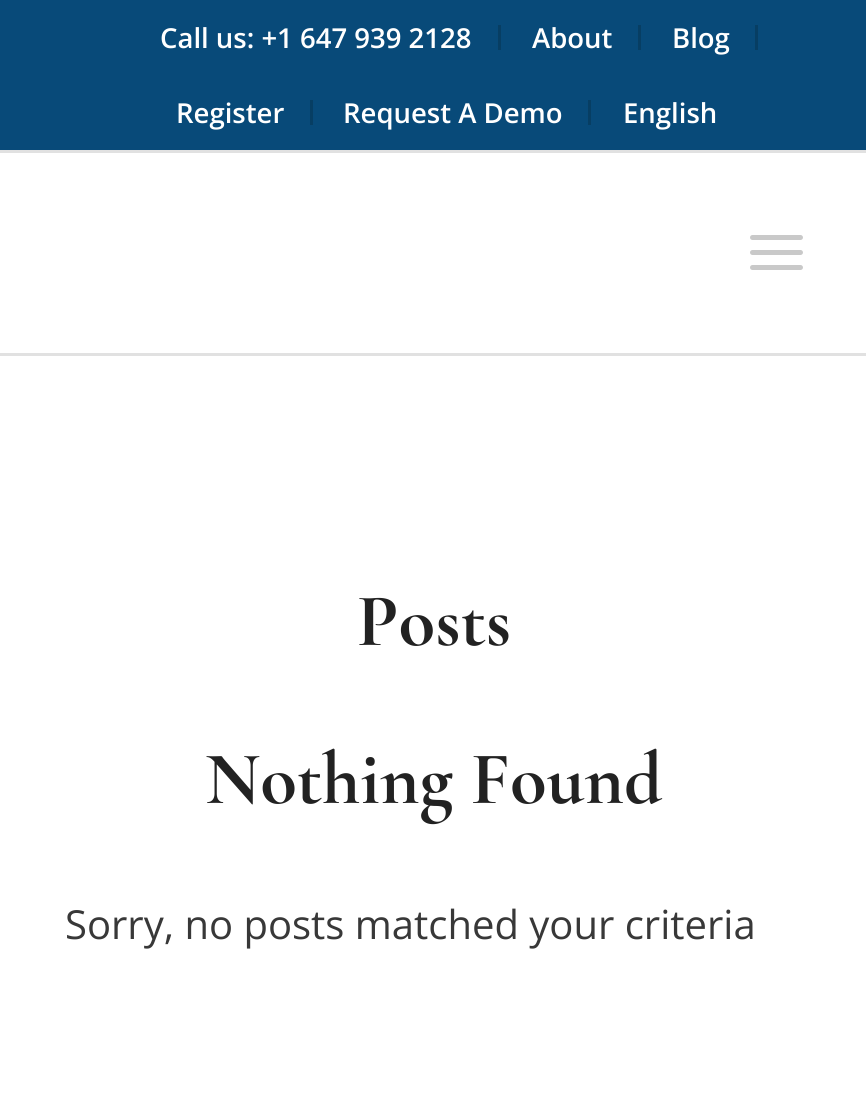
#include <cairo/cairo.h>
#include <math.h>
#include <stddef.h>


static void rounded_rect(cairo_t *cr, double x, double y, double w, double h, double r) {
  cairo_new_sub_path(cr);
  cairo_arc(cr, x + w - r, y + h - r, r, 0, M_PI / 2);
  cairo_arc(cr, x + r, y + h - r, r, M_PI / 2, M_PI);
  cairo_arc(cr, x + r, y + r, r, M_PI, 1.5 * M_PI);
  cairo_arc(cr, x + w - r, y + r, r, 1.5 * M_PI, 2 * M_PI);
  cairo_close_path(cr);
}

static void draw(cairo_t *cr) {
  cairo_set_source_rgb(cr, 1, 1, 1);
  cairo_paint(cr);
  cairo_set_source_rgb(cr, 8 / 255.0, 74 / 255.0, 121 / 255.0);
  cairo_rectangle(cr, 0, 0, 866, 150);
  cairo_fill(cr);
  cairo_set_source_rgb(cr, 225 / 255.0, 225 / 255.0, 225 / 255.0);
  cairo_rectangle(cr, 0, 150, 866, 3);
  cairo_fill(cr);
  cairo_set_source_rgb(cr, 7 / 255.0, 62 / 255.0, 99 / 255.0);
  cairo_rectangle(cr, 498, 25, 3, 25);
  cairo_fill(cr);
  cairo_rectangle(cr, 638, 25, 3, 25);
  cairo_fill(cr);
  cairo_rectangle(cr, 755, 25, 3, 25);
  cairo_fill(cr);
  cairo_rectangle(cr, 310, 100, 3, 25);
  cairo_fill(cr);
  cairo_rectangle(cr, 588, 100, 3, 25);
  cairo_fill(cr);
  cairo_set_source_rgb(cr, 225 / 255.0, 225 / 255.0, 225 / 255.0);
  cairo_rectangle(cr, 0, 353, 866, 3);
  cairo_fill(cr);
  cairo_set_source_rgb(cr, 201 / 255.0, 201 / 255.0, 201 / 255.0);
  rounded_rect(cr, 750, 250, 53, 5, 2.5);
  cairo_fill(cr);
  rounded_rect(cr, 750, 235, 53, 5, 2.5);
  cairo_fill(cr);
  rounded_rect(cr, 750, 265, 53, 5, 2.5);
  cairo_fill(cr);
  cairo_select_font_face(cr, "Open Sans SemiBold", CAIRO_FONT_SLANT_NORMAL, CAIRO_FONT_WEIGHT_NORMAL);
  cairo_set_font_size(cr, 27.5);
  cairo_set_source_rgb(cr, 1, 1, 1);
  cairo_move_to(cr, 160, 48);
  cairo_show_text(cr, "Call us: +1 647 939 2128");
  cairo_move_to(cr, 532, 48);
  cairo_show_text(cr, "About");
  cairo_move_to(cr, 672, 48);
  cairo_show_text(cr, "Blog");
  cairo_move_to(cr, 176, 123);
  cairo_show_text(cr, "Register");
  cairo_move_to(cr, 343, 123);
  cairo_show_text(cr, "Request A Demo");
  cairo_move_to(cr, 623, 123);
  cairo_show_text(cr, "English");
  cairo_select_font_face(cr, "Cormorant Garamond", CAIRO_FONT_SLANT_NORMAL, CAIRO_FONT_WEIGHT_BOLD);
  cairo_set_font_size(cr, 75);
  cairo_set_source_rgb(cr, 34 / 255.0, 34 / 255.0, 34 / 255.0);
  cairo_move_to(cr, 357, 645);
  cairo_show_text(cr, "Posts");
  cairo_move_to(cr, 205, 803);
  cairo_show_text(cr, "Nothing Found");
  cairo_select_font_face(cr, "Open Sans", CAIRO_FONT_SLANT_NORMAL, CAIRO_FONT_WEIGHT_NORMAL);
  cairo_set_font_size(cr, 40);
  cairo_set_source_rgb(cr, 56 / 255.0, 56 / 255.0, 56 / 255.0);
  cairo_move_to(cr, 65, 939);
  cairo_show_text(cr, "Sorry, no posts matched your criteria");
}

int main(void) {
  cairo_surface_t *surface = cairo_image_surface_create(CAIRO_FORMAT_RGB24, 866, 1118);
  cairo_t *cr = cairo_create(surface);
  cairo_font_options_t *options = cairo_font_options_create();
  cairo_font_options_set_hint_metrics(options, CAIRO_HINT_METRICS_OFF);
  cairo_font_options_set_hint_style(options, CAIRO_HINT_STYLE_NONE);
  cairo_set_font_options(cr, options);
  cairo_set_miter_limit(cr, 4);
  draw(cr);
  cairo_surface_write_to_png(surface, "out.png");
  cairo_font_options_destroy(options);
  cairo_destroy(cr);
  cairo_surface_destroy(surface);
  return 0;
}
